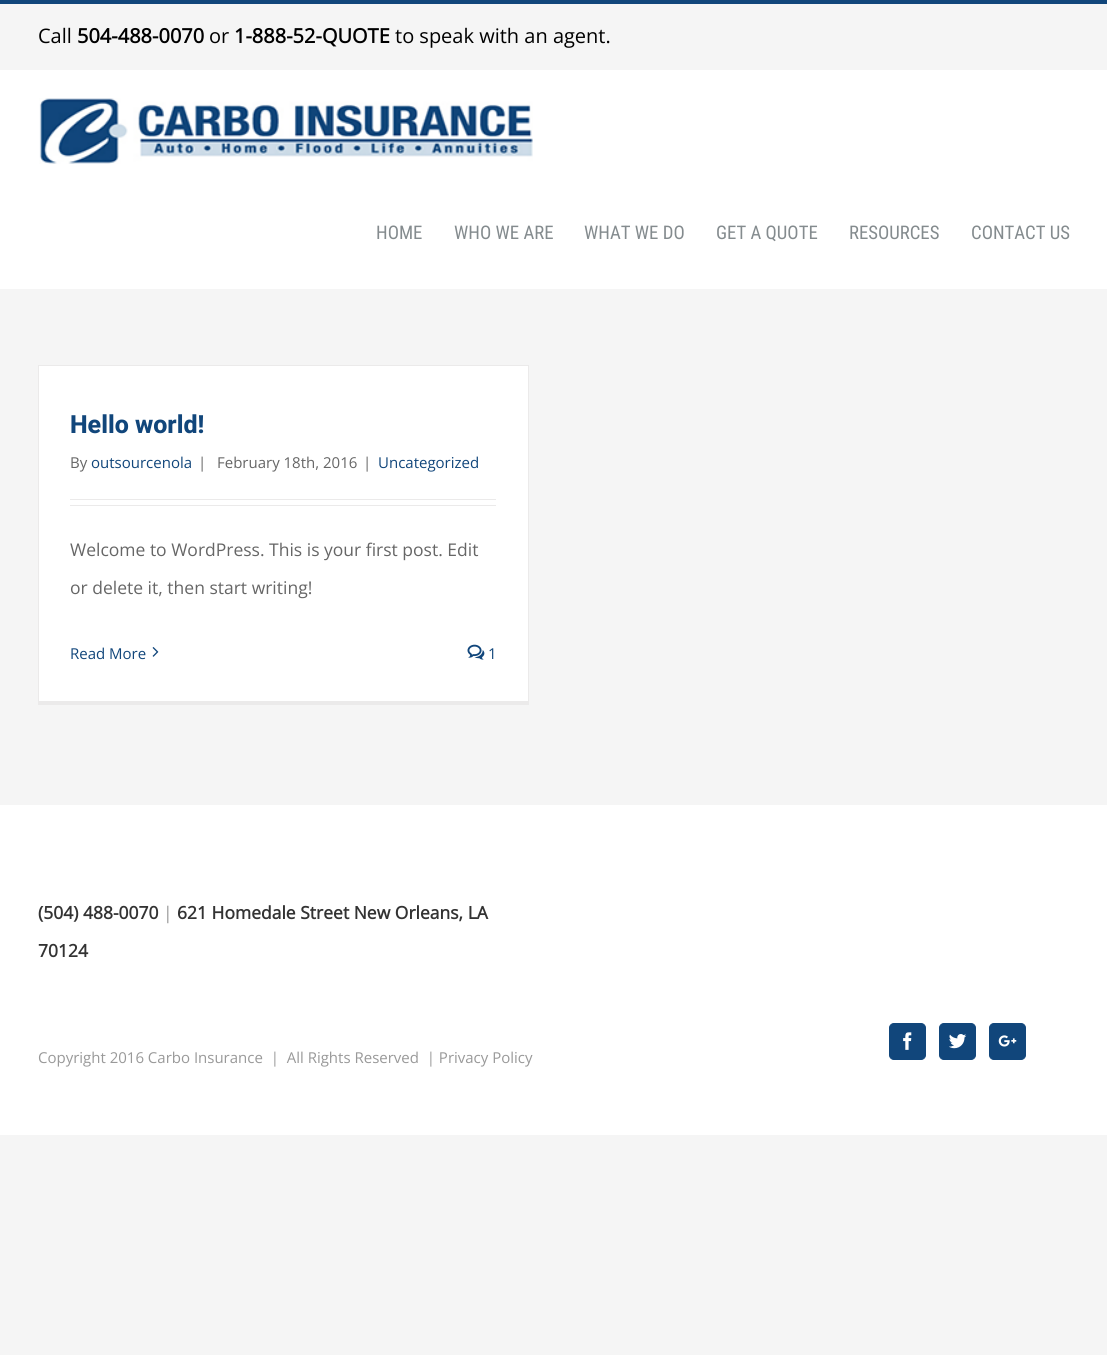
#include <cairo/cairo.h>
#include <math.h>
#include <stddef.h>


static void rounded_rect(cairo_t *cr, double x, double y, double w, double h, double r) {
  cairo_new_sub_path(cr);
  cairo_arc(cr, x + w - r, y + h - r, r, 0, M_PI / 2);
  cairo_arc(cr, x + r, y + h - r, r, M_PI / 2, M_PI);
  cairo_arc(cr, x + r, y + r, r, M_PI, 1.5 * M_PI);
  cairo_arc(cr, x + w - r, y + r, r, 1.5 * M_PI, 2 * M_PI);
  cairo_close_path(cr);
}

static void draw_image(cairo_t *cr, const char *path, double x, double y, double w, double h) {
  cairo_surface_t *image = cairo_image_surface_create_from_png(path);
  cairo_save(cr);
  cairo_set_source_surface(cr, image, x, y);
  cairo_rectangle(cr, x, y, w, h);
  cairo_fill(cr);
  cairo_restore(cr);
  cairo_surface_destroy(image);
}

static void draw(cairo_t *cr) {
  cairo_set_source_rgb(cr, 245 / 255.0, 245 / 255.0, 245 / 255.0);
  cairo_paint(cr);
  cairo_set_source_rgb(cr, 17 / 255.0, 70 / 255.0, 123 / 255.0);
  cairo_rectangle(cr, 0, 0, 1107, 4);
  cairo_fill(cr);
  cairo_set_source_rgb(cr, 1, 1, 1);
  cairo_rectangle(cr, 0, 70, 1107, 219);
  cairo_fill(cr);
  draw_image(cr, "images/1.png", 39, 98, 494, 66);
  cairo_rectangle(cr, 39, 366, 489, 335);
  cairo_fill(cr);
  cairo_set_source_rgb(cr, 235 / 255.0, 234 / 255.0, 234 / 255.0);
  cairo_rectangle(cr, 38, 365, 491, 1);
  cairo_fill(cr);
  cairo_rectangle(cr, 528, 365, 1, 340);
  cairo_fill(cr);
  cairo_rectangle(cr, 38, 701, 491, 4);
  cairo_fill(cr);
  cairo_rectangle(cr, 38, 365, 1, 340);
  cairo_fill(cr);
  cairo_rectangle(cr, 70, 499, 426, 1);
  cairo_fill(cr);
  cairo_rectangle(cr, 70, 505, 426, 1);
  cairo_fill(cr);
  draw_image(cr, "images/2.png", 152, 647, 7, 10);
  draw_image(cr, "images/3.png", 467, 644, 18, 16);
  cairo_set_source_rgb(cr, 1, 1, 1);
  cairo_rectangle(cr, 0, 805, 1107, 330);
  cairo_fill(cr);
  cairo_set_source_rgb(cr, 17 / 255.0, 70 / 255.0, 123 / 255.0);
  rounded_rect(cr, 889.5, 1023.5, 36, 36, 4.5);
  cairo_fill_preserve(cr);
  cairo_set_line_width(cr, 1);
  cairo_stroke(cr);
  draw_image(cr, "images/4.png", 903, 1032, 9, 18);
  rounded_rect(cr, 939.5, 1023.5, 36, 36, 4.5);
  cairo_fill_preserve(cr);
  cairo_stroke(cr);
  draw_image(cr, "images/5.png", 949, 1034, 18, 15);
  rounded_rect(cr, 989.5, 1023.5, 36, 36, 4.5);
  cairo_fill_preserve(cr);
  cairo_stroke(cr);
  draw_image(cr, "images/6.png", 998, 1035, 19, 12);
  cairo_select_font_face(cr, "Open Sans", CAIRO_FONT_SLANT_NORMAL, CAIRO_FONT_WEIGHT_NORMAL);
  cairo_set_font_size(cr, 20);
  cairo_set_source_rgb(cr, 0, 0, 0);
  cairo_move_to(cr, 38, 43);
  cairo_show_text(cr, "Call");
  cairo_select_font_face(cr, "Open Sans", CAIRO_FONT_SLANT_NORMAL, CAIRO_FONT_WEIGHT_BOLD);
  cairo_move_to(cr, 77, 43);
  cairo_show_text(cr, "504-488-0070");
  cairo_select_font_face(cr, "Open Sans", CAIRO_FONT_SLANT_NORMAL, CAIRO_FONT_WEIGHT_NORMAL);
  cairo_move_to(cr, 209, 43);
  cairo_show_text(cr, "or");
  cairo_select_font_face(cr, "Open Sans", CAIRO_FONT_SLANT_NORMAL, CAIRO_FONT_WEIGHT_BOLD);
  cairo_move_to(cr, 234, 43);
  cairo_show_text(cr, "1-888-52-QUOTE");
  cairo_select_font_face(cr, "Open Sans", CAIRO_FONT_SLANT_NORMAL, CAIRO_FONT_WEIGHT_NORMAL);
  cairo_move_to(cr, 395, 43);
  cairo_show_text(cr, "to speak with an agent.");
  cairo_select_font_face(cr, "Roboto Condensed", CAIRO_FONT_SLANT_NORMAL, CAIRO_FONT_WEIGHT_NORMAL);
  cairo_set_font_size(cr, 18.75);
  cairo_set_source_rgb(cr, 132 / 255.0, 139 / 255.0, 142 / 255.0);
  cairo_move_to(cr, 376, 239);
  cairo_show_text(cr, "HOME");
  cairo_move_to(cr, 454, 239);
  cairo_show_text(cr, "WHO WE ARE");
  cairo_move_to(cr, 584, 239);
  cairo_show_text(cr, "WHAT WE DO");
  cairo_move_to(cr, 716, 239);
  cairo_show_text(cr, "GET A QUOTE");
  cairo_move_to(cr, 849, 239);
  cairo_show_text(cr, "RESOURCES");
  cairo_move_to(cr, 971, 239);
  cairo_show_text(cr, "CONTACT US");
  cairo_select_font_face(cr, "Roboto ExtraBold", CAIRO_FONT_SLANT_NORMAL, CAIRO_FONT_WEIGHT_NORMAL);
  cairo_set_font_size(cr, 25);
  cairo_set_source_rgb(cr, 17 / 255.0, 70 / 255.0, 123 / 255.0);
  cairo_move_to(cr, 70, 433);
  cairo_show_text(cr, "Hello world!");
  cairo_select_font_face(cr, "Open Sans", CAIRO_FONT_SLANT_NORMAL, CAIRO_FONT_WEIGHT_NORMAL);
  cairo_set_font_size(cr, 15);
  cairo_set_source_rgb(cr, 102 / 255.0, 102 / 255.0, 102 / 255.0);
  cairo_move_to(cr, 70, 468);
  cairo_show_text(cr, "By");
  cairo_set_source_rgb(cr, 17 / 255.0, 70 / 255.0, 123 / 255.0);
  cairo_move_to(cr, 91, 468);
  cairo_show_text(cr, "outsourcenola");
  cairo_set_source_rgb(cr, 102 / 255.0, 102 / 255.0, 102 / 255.0);
  cairo_move_to(cr, 198, 468);
  cairo_show_text(cr, "|");
  cairo_move_to(cr, 217, 468);
  cairo_show_text(cr, "February 18th, 2016");
  cairo_move_to(cr, 363, 468);
  cairo_show_text(cr, "|");
  cairo_set_source_rgb(cr, 17 / 255.0, 70 / 255.0, 123 / 255.0);
  cairo_move_to(cr, 378, 468);
  cairo_show_text(cr, "Uncategorized");
  cairo_set_font_size(cr, 17.5);
  cairo_set_source_rgb(cr, 102 / 255.0, 102 / 255.0, 102 / 255.0);
  cairo_move_to(cr, 70, 556);
  cairo_show_text(cr, "Welcome to WordPress. This is your first post. Edit");
  cairo_move_to(cr, 70, 594);
  cairo_show_text(cr, "or delete it, then start writing!");
  cairo_set_font_size(cr, 15);
  cairo_set_source_rgb(cr, 17 / 255.0, 70 / 255.0, 123 / 255.0);
  cairo_move_to(cr, 70, 659);
  cairo_show_text(cr, "Read More");
  cairo_move_to(cr, 488, 659);
  cairo_show_text(cr, "1");
  cairo_select_font_face(cr, "Open Sans", CAIRO_FONT_SLANT_NORMAL, CAIRO_FONT_WEIGHT_BOLD);
  cairo_set_font_size(cr, 17.5);
  cairo_set_source_rgb(cr, 51 / 255.0, 51 / 255.0, 51 / 255.0);
  cairo_move_to(cr, 38, 919);
  cairo_show_text(cr, "(504) 488-0070");
  cairo_select_font_face(cr, "Open Sans", CAIRO_FONT_SLANT_NORMAL, CAIRO_FONT_WEIGHT_NORMAL);
  cairo_set_source_rgb(cr, 153 / 255.0, 153 / 255.0, 153 / 255.0);
  cairo_move_to(cr, 163, 919);
  cairo_show_text(cr, "|");
  cairo_select_font_face(cr, "Open Sans", CAIRO_FONT_SLANT_NORMAL, CAIRO_FONT_WEIGHT_BOLD);
  cairo_set_source_rgb(cr, 51 / 255.0, 51 / 255.0, 51 / 255.0);
  cairo_move_to(cr, 177, 919);
  cairo_show_text(cr, "621 Homedale Street New Orleans, LA");
  cairo_move_to(cr, 38, 957);
  cairo_show_text(cr, "70124");
  cairo_select_font_face(cr, "Open Sans", CAIRO_FONT_SLANT_NORMAL, CAIRO_FONT_WEIGHT_NORMAL);
  cairo_set_font_size(cr, 15);
  cairo_set_source_rgb(cr, 153 / 255.0, 153 / 255.0, 153 / 255.0);
  cairo_move_to(cr, 38, 1063);
  cairo_show_text(cr, "Copyright 2016 Carbo Insurance  |  All Rights Reserved  | Privacy Policy");
}

int main(void) {
  cairo_surface_t *surface = cairo_image_surface_create(CAIRO_FORMAT_RGB24, 1107, 1355);
  cairo_t *cr = cairo_create(surface);
  cairo_font_options_t *options = cairo_font_options_create();
  cairo_font_options_set_hint_metrics(options, CAIRO_HINT_METRICS_OFF);
  cairo_font_options_set_hint_style(options, CAIRO_HINT_STYLE_NONE);
  cairo_set_font_options(cr, options);
  cairo_set_miter_limit(cr, 4);
  draw(cr);
  cairo_surface_write_to_png(surface, "out.png");
  cairo_font_options_destroy(options);
  cairo_destroy(cr);
  cairo_surface_destroy(surface);
  return 0;
}
